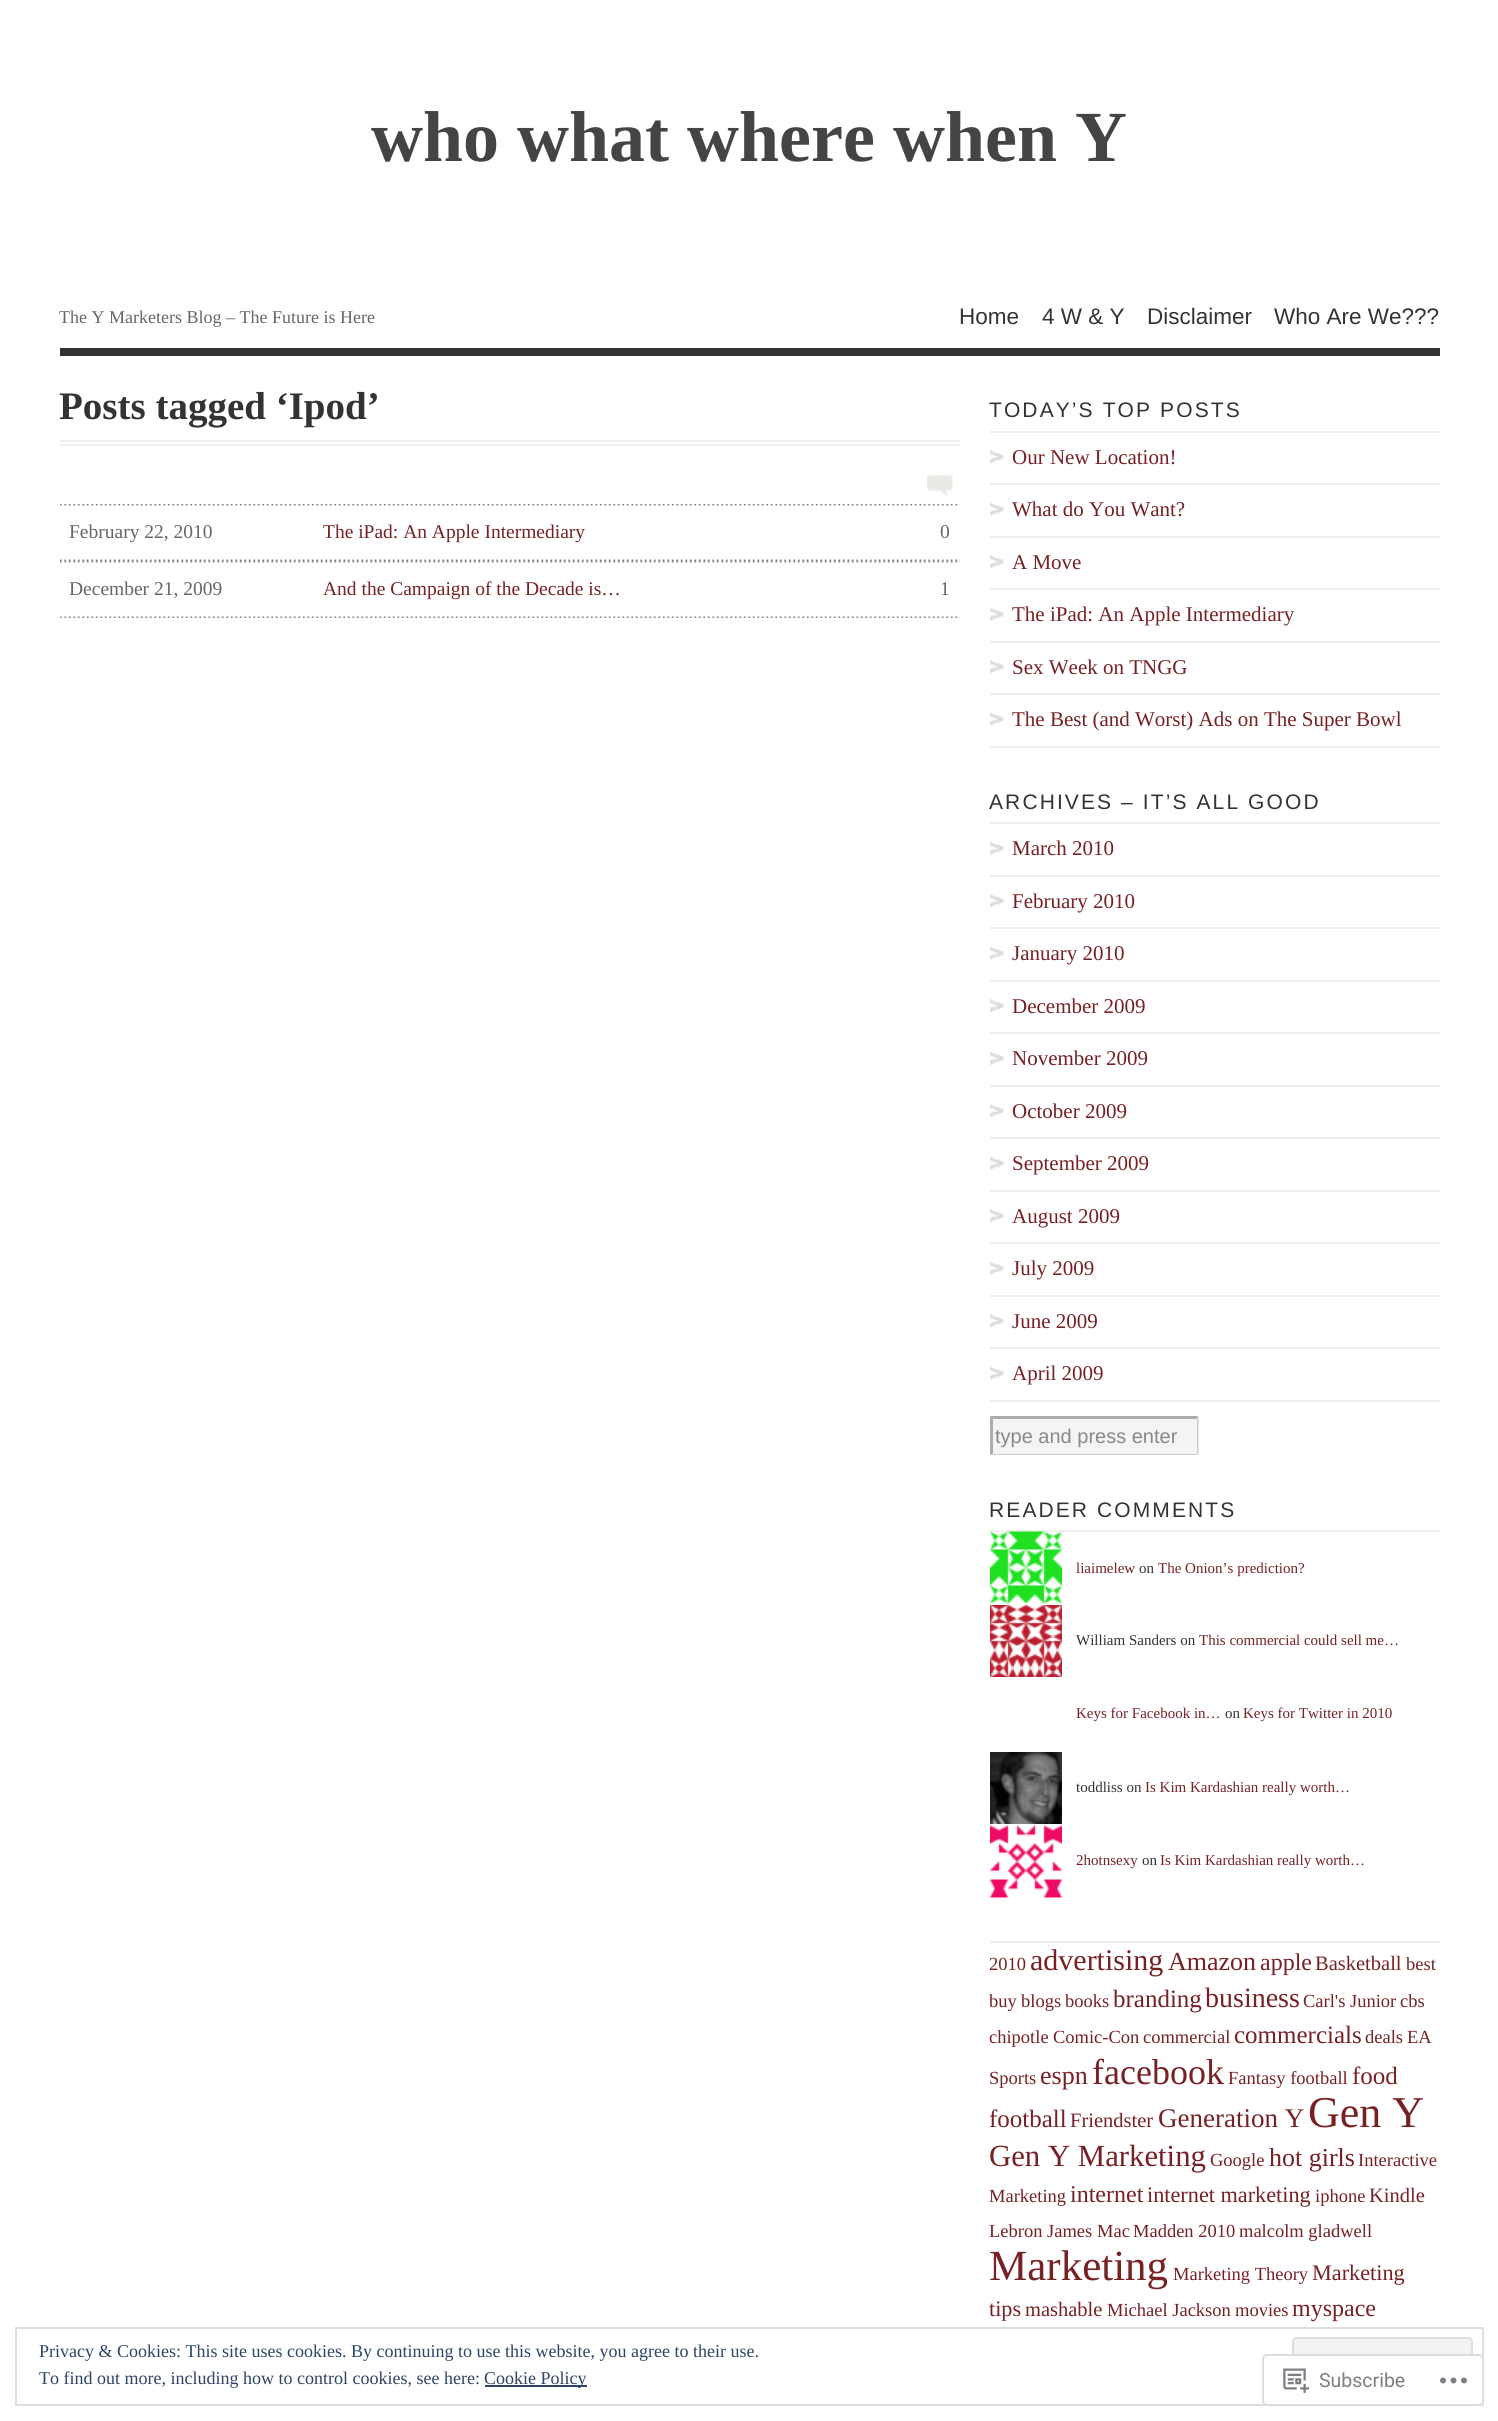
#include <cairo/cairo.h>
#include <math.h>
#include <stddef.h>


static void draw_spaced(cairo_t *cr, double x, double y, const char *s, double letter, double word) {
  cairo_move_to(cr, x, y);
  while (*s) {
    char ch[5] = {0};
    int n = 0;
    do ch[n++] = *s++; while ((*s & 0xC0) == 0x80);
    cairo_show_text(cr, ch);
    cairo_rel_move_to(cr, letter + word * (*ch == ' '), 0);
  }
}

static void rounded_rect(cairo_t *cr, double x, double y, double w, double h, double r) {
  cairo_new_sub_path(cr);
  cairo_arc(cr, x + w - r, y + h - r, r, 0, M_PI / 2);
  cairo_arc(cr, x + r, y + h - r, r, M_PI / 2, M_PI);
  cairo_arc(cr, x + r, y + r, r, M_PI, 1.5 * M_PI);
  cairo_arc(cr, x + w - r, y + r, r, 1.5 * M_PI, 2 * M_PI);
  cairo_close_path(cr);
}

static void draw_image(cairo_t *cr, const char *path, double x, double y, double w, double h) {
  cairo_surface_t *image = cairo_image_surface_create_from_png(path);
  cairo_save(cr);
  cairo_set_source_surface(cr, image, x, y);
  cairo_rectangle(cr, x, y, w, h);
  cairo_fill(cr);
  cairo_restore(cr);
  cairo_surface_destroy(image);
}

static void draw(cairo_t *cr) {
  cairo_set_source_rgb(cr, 1, 1, 1);
  cairo_paint(cr);
  cairo_set_source_rgb(cr, 51 / 255.0, 51 / 255.0, 51 / 255.0);
  cairo_rectangle(cr, 60, 348, 1380, 8);
  cairo_fill(cr);
  cairo_set_source_rgb(cr, 238 / 255.0, 238 / 255.0, 238 / 255.0);
  cairo_rectangle(cr, 60, 440, 900, 2);
  cairo_fill(cr);
  cairo_rectangle(cr, 60, 444, 900, 2);
  cairo_fill(cr);
  draw_image(cr, "images/1.png", 927, 475, 26, 22);
  draw_image(cr, "images/2.png", 60, 559, 900, 2);
  draw_image(cr, "images/3.png", 60, 504, 900, 2);
  draw_image(cr, "images/2.png", 60, 616, 900, 2);
  draw_image(cr, "images/3.png", 60, 561, 900, 2);
  cairo_rectangle(cr, 990, 431, 450, 2);
  cairo_fill(cr);
  cairo_rectangle(cr, 990, 483, 450, 2);
  cairo_fill(cr);
  draw_image(cr, "images/4.png", 990, 450, 14, 14);
  cairo_rectangle(cr, 990, 536, 450, 2);
  cairo_fill(cr);
  draw_image(cr, "images/5.png", 990, 502, 14, 15);
  cairo_rectangle(cr, 990, 588, 450, 2);
  cairo_fill(cr);
  draw_image(cr, "images/4.png", 990, 555, 14, 14);
  cairo_rectangle(cr, 990, 641, 450, 2);
  cairo_fill(cr);
  draw_image(cr, "images/5.png", 990, 607, 14, 15);
  cairo_rectangle(cr, 990, 693, 450, 2);
  cairo_fill(cr);
  draw_image(cr, "images/4.png", 990, 660, 14, 14);
  cairo_rectangle(cr, 990, 746, 450, 2);
  cairo_fill(cr);
  draw_image(cr, "images/5.png", 990, 712, 14, 15);
  cairo_rectangle(cr, 990, 822, 450, 2);
  cairo_fill(cr);
  cairo_rectangle(cr, 990, 875, 450, 2);
  cairo_fill(cr);
  draw_image(cr, "images/5.png", 990, 841, 14, 15);
  cairo_rectangle(cr, 990, 927, 450, 2);
  cairo_fill(cr);
  draw_image(cr, "images/4.png", 990, 894, 14, 14);
  cairo_rectangle(cr, 990, 980, 450, 2);
  cairo_fill(cr);
  draw_image(cr, "images/5.png", 990, 946, 14, 15);
  cairo_rectangle(cr, 990, 1032, 450, 2);
  cairo_fill(cr);
  draw_image(cr, "images/4.png", 990, 999, 14, 14);
  cairo_rectangle(cr, 990, 1085, 450, 2);
  cairo_fill(cr);
  draw_image(cr, "images/5.png", 990, 1051, 14, 15);
  cairo_rectangle(cr, 990, 1137, 450, 2);
  cairo_fill(cr);
  draw_image(cr, "images/4.png", 990, 1104, 14, 14);
  cairo_rectangle(cr, 990, 1190, 450, 2);
  cairo_fill(cr);
  draw_image(cr, "images/5.png", 990, 1156, 14, 15);
  cairo_rectangle(cr, 990, 1242, 450, 2);
  cairo_fill(cr);
  draw_image(cr, "images/4.png", 990, 1209, 14, 14);
  cairo_rectangle(cr, 990, 1295, 450, 2);
  cairo_fill(cr);
  draw_image(cr, "images/5.png", 990, 1261, 14, 15);
  cairo_rectangle(cr, 990, 1347, 450, 2);
  cairo_fill(cr);
  draw_image(cr, "images/4.png", 990, 1314, 14, 14);
  cairo_rectangle(cr, 990, 1400, 450, 2);
  cairo_fill(cr);
  draw_image(cr, "images/5.png", 990, 1366, 14, 15);
  cairo_set_source_rgb(cr, 244 / 255.0, 244 / 255.0, 244 / 255.0);
  cairo_rectangle(cr, 993, 1419, 204, 35);
  cairo_fill(cr);
  cairo_set_source_rgb(cr, 172 / 255.0, 172 / 255.0, 172 / 255.0);
  cairo_new_path(cr);
  cairo_move_to(cr, 990, 1416);
  cairo_line_to(cr, 1198, 1416);
  cairo_line_to(cr, 1197, 1419);
  cairo_line_to(cr, 993, 1419);
  cairo_close_path(cr);
  cairo_fill(cr);
  cairo_set_source_rgb(cr, 204 / 255.0, 204 / 255.0, 204 / 255.0);
  cairo_new_path(cr);
  cairo_move_to(cr, 1198.5, 1416);
  cairo_line_to(cr, 1198.5, 1455);
  cairo_line_to(cr, 1197, 1453.5);
  cairo_line_to(cr, 1197, 1419);
  cairo_close_path(cr);
  cairo_fill(cr);
  cairo_new_path(cr);
  cairo_move_to(cr, 1198, 1455);
  cairo_line_to(cr, 990, 1455);
  cairo_line_to(cr, 993, 1454);
  cairo_line_to(cr, 1197, 1454);
  cairo_close_path(cr);
  cairo_fill(cr);
  cairo_set_source_rgb(cr, 172 / 255.0, 172 / 255.0, 172 / 255.0);
  cairo_new_path(cr);
  cairo_move_to(cr, 990, 1455);
  cairo_line_to(cr, 990, 1416);
  cairo_line_to(cr, 993, 1419);
  cairo_line_to(cr, 993, 1453.5);
  cairo_close_path(cr);
  cairo_fill(cr);
  cairo_set_source_rgb(cr, 238 / 255.0, 238 / 255.0, 238 / 255.0);
  cairo_rectangle(cr, 990, 1530, 450, 2);
  cairo_fill(cr);
  draw_image(cr, "images/6.png", 990, 1531, 72, 73);
  draw_image(cr, "images/7.png", 990, 1605, 72, 72);
  draw_image(cr, "images/8.png", 990, 1752, 72, 72);
  draw_image(cr, "images/9.png", 990, 1825, 72, 73);
  cairo_rectangle(cr, 990, 1941, 450, 2);
  cairo_fill(cr);
  cairo_rectangle(cr, 16, 2328, 1467, 77);
  cairo_set_source_rgb(cr, 222 / 255.0, 222 / 255.0, 222 / 255.0);
  cairo_stroke(cr);
  cairo_set_source_rgb(cr, 243 / 255.0, 243 / 255.0, 243 / 255.0);
  rounded_rect(cr, 1293, 2338, 179, 57, 4);
  cairo_fill_preserve(cr);
  cairo_set_source_rgb(cr, 222 / 255.0, 222 / 255.0, 222 / 255.0);
  cairo_stroke(cr);
  cairo_set_source_rgb(cr, 46 / 255.0, 68 / 255.0, 103 / 255.0);
  cairo_rectangle(cr, 485, 2385, 102, 2);
  cairo_fill(cr);
  cairo_set_source_rgba(cr, 1, 1, 1, 0.98);
  rounded_rect(cr, 1262, 2354, 222, 52, 5);
  cairo_fill(cr);
  rounded_rect(cr, 1263, 2355, 220, 50, 4);
  cairo_set_source_rgba(cr, 220 / 255.0, 220 / 255.0, 222 / 255.0, 0.98);
  cairo_stroke(cr);
  draw_image(cr, "images/10.png", 1283, 2368, 27, 25);
  draw_image(cr, "images/11.png", 1440, 2377, 27, 7);
  cairo_select_font_face(cr, "Liberation Serif", CAIRO_FONT_SLANT_NORMAL, CAIRO_FONT_WEIGHT_BOLD);
  cairo_set_font_size(cr, 72);
  cairo_set_source_rgb(cr, 68 / 255.0, 68 / 255.0, 68 / 255.0);
  cairo_move_to(cr, 371, 161);
  cairo_show_text(cr, "who what where when Y");
  cairo_select_font_face(cr, "Liberation Serif", CAIRO_FONT_SLANT_NORMAL, CAIRO_FONT_WEIGHT_NORMAL);
  cairo_set_font_size(cr, 18);
  cairo_set_source_rgb(cr, 102 / 255.0, 102 / 255.0, 102 / 255.0);
  cairo_move_to(cr, 59, 323);
  cairo_show_text(cr, "The Y Marketers Blog – The Future is Here");
  cairo_select_font_face(cr, "Liberation Sans", CAIRO_FONT_SLANT_NORMAL, CAIRO_FONT_WEIGHT_NORMAL);
  cairo_set_font_size(cr, 22.5);
  cairo_set_source_rgb(cr, 51 / 255.0, 51 / 255.0, 51 / 255.0);
  cairo_move_to(cr, 959, 324);
  cairo_show_text(cr, "Home");
  cairo_move_to(cr, 1042, 324);
  cairo_show_text(cr, "4 W & Y");
  cairo_move_to(cr, 1147, 324);
  cairo_show_text(cr, "Disclaimer");
  cairo_move_to(cr, 1274, 324);
  cairo_show_text(cr, "Who Are We?\077?");
  cairo_select_font_face(cr, "Liberation Serif", CAIRO_FONT_SLANT_NORMAL, CAIRO_FONT_WEIGHT_BOLD);
  cairo_set_font_size(cr, 39);
  cairo_move_to(cr, 59, 419);
  cairo_show_text(cr, "Posts tagged ‘Ipod’");
  cairo_select_font_face(cr, "Liberation Serif", CAIRO_FONT_SLANT_NORMAL, CAIRO_FONT_WEIGHT_NORMAL);
  cairo_set_font_size(cr, 19.5);
  cairo_set_source_rgb(cr, 102 / 255.0, 102 / 255.0, 102 / 255.0);
  cairo_move_to(cr, 69, 538);
  cairo_show_text(cr, "February 22, 2010");
  cairo_set_source_rgb(cr, 119 / 255.0, 33 / 255.0, 36 / 255.0);
  cairo_move_to(cr, 323, 538);
  cairo_show_text(cr, "The iPad: An Apple Intermediary");
  cairo_set_source_rgb(cr, 102 / 255.0, 102 / 255.0, 102 / 255.0);
  cairo_move_to(cr, 940, 538);
  cairo_show_text(cr, "0");
  cairo_move_to(cr, 69, 595);
  cairo_show_text(cr, "December 21, 2009");
  cairo_set_source_rgb(cr, 119 / 255.0, 33 / 255.0, 36 / 255.0);
  cairo_move_to(cr, 323, 595);
  cairo_show_text(cr, "And the Campaign of the Decade is…");
  cairo_set_source_rgb(cr, 102 / 255.0, 102 / 255.0, 102 / 255.0);
  cairo_move_to(cr, 940, 595);
  cairo_show_text(cr, "1");
  cairo_select_font_face(cr, "Liberation Sans", CAIRO_FONT_SLANT_NORMAL, CAIRO_FONT_WEIGHT_NORMAL);
  cairo_set_font_size(cr, 21);
  cairo_set_source_rgb(cr, 51 / 255.0, 51 / 255.0, 51 / 255.0);
  draw_spaced(cr, 989, 417, "TODAY’S TOP POSTS", 2.1, 0);
  cairo_select_font_face(cr, "Liberation Serif", CAIRO_FONT_SLANT_NORMAL, CAIRO_FONT_WEIGHT_NORMAL);
  cairo_set_source_rgb(cr, 119 / 255.0, 33 / 255.0, 36 / 255.0);
  cairo_move_to(cr, 1012, 464);
  cairo_show_text(cr, "Our New Location!");
  cairo_move_to(cr, 1012, 516);
  cairo_show_text(cr, "What do You Want?");
  cairo_move_to(cr, 1012, 569);
  cairo_show_text(cr, "A Move");
  cairo_move_to(cr, 1012, 621);
  cairo_show_text(cr, "The iPad: An Apple Intermediary");
  cairo_move_to(cr, 1012, 674);
  cairo_show_text(cr, "Sex Week on TNGG");
  cairo_move_to(cr, 1012, 726);
  cairo_show_text(cr, "The Best (and Worst) Ads on The Super Bowl");
  cairo_select_font_face(cr, "Liberation Sans", CAIRO_FONT_SLANT_NORMAL, CAIRO_FONT_WEIGHT_NORMAL);
  cairo_set_source_rgb(cr, 51 / 255.0, 51 / 255.0, 51 / 255.0);
  draw_spaced(cr, 989, 809, "ARCHIVES – IT’S ALL GOOD", 2.1, 0);
  cairo_select_font_face(cr, "Liberation Serif", CAIRO_FONT_SLANT_NORMAL, CAIRO_FONT_WEIGHT_NORMAL);
  cairo_set_source_rgb(cr, 119 / 255.0, 33 / 255.0, 36 / 255.0);
  cairo_move_to(cr, 1012, 855);
  cairo_show_text(cr, "March 2010");
  cairo_move_to(cr, 1012, 908);
  cairo_show_text(cr, "February 2010");
  cairo_move_to(cr, 1012, 960);
  cairo_show_text(cr, "January 2010");
  cairo_move_to(cr, 1012, 1013);
  cairo_show_text(cr, "December 2009");
  cairo_move_to(cr, 1012, 1065);
  cairo_show_text(cr, "November 2009");
  cairo_move_to(cr, 1012, 1118);
  cairo_show_text(cr, "October 2009");
  cairo_move_to(cr, 1012, 1170);
  cairo_show_text(cr, "September 2009");
  cairo_move_to(cr, 1012, 1223);
  cairo_show_text(cr, "August 2009");
  cairo_move_to(cr, 1012, 1275);
  cairo_show_text(cr, "July 2009");
  cairo_move_to(cr, 1012, 1328);
  cairo_show_text(cr, "June 2009");
  cairo_move_to(cr, 1012, 1380);
  cairo_show_text(cr, "April 2009");
  cairo_select_font_face(cr, "Liberation Sans", CAIRO_FONT_SLANT_NORMAL, CAIRO_FONT_WEIGHT_NORMAL);
  cairo_set_font_size(cr, 20);
  cairo_set_source_rgb(cr, 136 / 255.0, 136 / 255.0, 136 / 255.0);
  cairo_move_to(cr, 995, 1443);
  cairo_show_text(cr, "type and press enter");
  cairo_set_font_size(cr, 21);
  cairo_set_source_rgb(cr, 51 / 255.0, 51 / 255.0, 51 / 255.0);
  draw_spaced(cr, 989, 1517, "READER COMMENTS", 2.1, 0);
  cairo_select_font_face(cr, "Liberation Serif", CAIRO_FONT_SLANT_NORMAL, CAIRO_FONT_WEIGHT_NORMAL);
  cairo_set_font_size(cr, 15);
  cairo_set_source_rgb(cr, 119 / 255.0, 33 / 255.0, 36 / 255.0);
  cairo_move_to(cr, 1076, 1573);
  cairo_show_text(cr, "liaimelew");
  cairo_set_source_rgb(cr, 51 / 255.0, 51 / 255.0, 51 / 255.0);
  cairo_move_to(cr, 1139, 1573);
  cairo_show_text(cr, "on");
  cairo_set_source_rgb(cr, 119 / 255.0, 33 / 255.0, 36 / 255.0);
  cairo_move_to(cr, 1158, 1573);
  cairo_show_text(cr, "The Onion’s prediction?");
  cairo_set_source_rgb(cr, 51 / 255.0, 51 / 255.0, 51 / 255.0);
  cairo_move_to(cr, 1076, 1645);
  cairo_show_text(cr, "William Sanders on");
  cairo_set_source_rgb(cr, 119 / 255.0, 33 / 255.0, 36 / 255.0);
  cairo_move_to(cr, 1199, 1645);
  cairo_show_text(cr, "This commercial could sell me…");
  cairo_move_to(cr, 1076, 1718);
  cairo_show_text(cr, "Keys for Facebook in…");
  cairo_set_source_rgb(cr, 51 / 255.0, 51 / 255.0, 51 / 255.0);
  cairo_move_to(cr, 1225, 1718);
  cairo_show_text(cr, "on");
  cairo_set_source_rgb(cr, 119 / 255.0, 33 / 255.0, 36 / 255.0);
  cairo_move_to(cr, 1243, 1718);
  cairo_show_text(cr, "Keys for Twitter in 2010");
  cairo_set_source_rgb(cr, 51 / 255.0, 51 / 255.0, 51 / 255.0);
  cairo_move_to(cr, 1076, 1792);
  cairo_show_text(cr, "toddliss on");
  cairo_set_source_rgb(cr, 119 / 255.0, 33 / 255.0, 36 / 255.0);
  cairo_move_to(cr, 1145, 1792);
  cairo_show_text(cr, "Is Kim Kardashian really worth…");
  cairo_move_to(cr, 1076, 1865);
  cairo_show_text(cr, "2hotnsexy");
  cairo_set_source_rgb(cr, 51 / 255.0, 51 / 255.0, 51 / 255.0);
  cairo_move_to(cr, 1142, 1865);
  cairo_show_text(cr, "on");
  cairo_set_source_rgb(cr, 119 / 255.0, 33 / 255.0, 36 / 255.0);
  cairo_move_to(cr, 1160, 1865);
  cairo_show_text(cr, "Is Kim Kardashian really worth…");
  cairo_set_font_size(cr, 18.5);
  cairo_move_to(cr, 989, 1970);
  cairo_show_text(cr, "2010");
  cairo_set_font_size(cr, 30);
  cairo_move_to(cr, 1030, 1970);
  cairo_show_text(cr, "advertising");
  cairo_set_font_size(cr, 26);
  cairo_move_to(cr, 1168, 1970);
  cairo_show_text(cr, "Amazon");
  cairo_set_font_size(cr, 24);
  cairo_move_to(cr, 1260, 1970);
  cairo_show_text(cr, "apple");
  cairo_set_font_size(cr, 20.5);
  cairo_move_to(cr, 1315, 1970);
  cairo_show_text(cr, "Basketball");
  cairo_set_font_size(cr, 18.5);
  cairo_move_to(cr, 1406, 1970);
  cairo_show_text(cr, "best");
  cairo_move_to(cr, 989, 2007);
  cairo_show_text(cr, "buy");
  cairo_move_to(cr, 1021, 2007);
  cairo_show_text(cr, "blogs");
  cairo_move_to(cr, 1065, 2007);
  cairo_show_text(cr, "books");
  cairo_set_font_size(cr, 25);
  cairo_move_to(cr, 1113, 2007);
  cairo_show_text(cr, "branding");
  cairo_set_font_size(cr, 28);
  cairo_move_to(cr, 1205, 2007);
  cairo_show_text(cr, "business");
  cairo_set_font_size(cr, 18.5);
  cairo_move_to(cr, 1303, 2007);
  cairo_show_text(cr, "Carl's Junior");
  cairo_move_to(cr, 1400, 2007);
  cairo_show_text(cr, "cbs");
  cairo_move_to(cr, 989, 2043);
  cairo_show_text(cr, "chipotle");
  cairo_move_to(cr, 1053, 2043);
  cairo_show_text(cr, "Comic-Con");
  cairo_move_to(cr, 1143, 2043);
  cairo_show_text(cr, "commercial");
  cairo_set_font_size(cr, 25);
  cairo_move_to(cr, 1234, 2043);
  cairo_show_text(cr, "commercials");
  cairo_set_font_size(cr, 18.5);
  cairo_move_to(cr, 1365, 2043);
  cairo_show_text(cr, "deals");
  cairo_move_to(cr, 1407, 2043);
  cairo_show_text(cr, "EA");
  cairo_move_to(cr, 989, 2084);
  cairo_show_text(cr, "Sports");
  cairo_set_font_size(cr, 26);
  cairo_move_to(cr, 1040, 2084);
  cairo_show_text(cr, "espn");
  cairo_set_font_size(cr, 36);
  cairo_move_to(cr, 1092, 2084);
  cairo_show_text(cr, "facebook");
  cairo_set_font_size(cr, 18.5);
  cairo_move_to(cr, 1228, 2084);
  cairo_show_text(cr, "Fantasy football");
  cairo_set_font_size(cr, 25);
  cairo_move_to(cr, 1352, 2084);
  cairo_show_text(cr, "food");
  cairo_move_to(cr, 989, 2127);
  cairo_show_text(cr, "football");
  cairo_set_font_size(cr, 20.5);
  cairo_move_to(cr, 1070, 2127);
  cairo_show_text(cr, "Friendster");
  cairo_set_font_size(cr, 27);
  cairo_move_to(cr, 1158, 2127);
  cairo_show_text(cr, "Generation Y");
  cairo_set_font_size(cr, 44);
  cairo_move_to(cr, 1308, 2127);
  cairo_show_text(cr, "Gen Y");
  cairo_set_font_size(cr, 30.75);
  cairo_move_to(cr, 989, 2166);
  cairo_show_text(cr, "Gen Y Marketing");
  cairo_set_font_size(cr, 18.5);
  cairo_move_to(cr, 1210, 2166);
  cairo_show_text(cr, "Google");
  cairo_set_font_size(cr, 26);
  cairo_move_to(cr, 1269, 2166);
  cairo_show_text(cr, "hot girls");
  cairo_set_font_size(cr, 18.5);
  cairo_move_to(cr, 1358, 2166);
  cairo_show_text(cr, "Interactive");
  cairo_move_to(cr, 989, 2202);
  cairo_show_text(cr, "Marketing");
  cairo_set_font_size(cr, 24);
  cairo_move_to(cr, 1070, 2202);
  cairo_show_text(cr, "internet");
  cairo_set_font_size(cr, 22.25);
  cairo_move_to(cr, 1147, 2202);
  cairo_show_text(cr, "internet marketing");
  cairo_set_font_size(cr, 18.5);
  cairo_move_to(cr, 1315, 2202);
  cairo_show_text(cr, "iphone");
  cairo_set_font_size(cr, 20.5);
  cairo_move_to(cr, 1369, 2202);
  cairo_show_text(cr, "Kindle");
  cairo_set_font_size(cr, 18.5);
  cairo_move_to(cr, 989, 2237);
  cairo_show_text(cr, "Lebron James");
  cairo_move_to(cr, 1097, 2237);
  cairo_show_text(cr, "Mac");
  cairo_move_to(cr, 1133, 2237);
  cairo_show_text(cr, "Madden 2010");
  cairo_move_to(cr, 1239, 2237);
  cairo_show_text(cr, "malcolm gladwell");
  cairo_set_font_size(cr, 43);
  cairo_move_to(cr, 989, 2280);
  cairo_show_text(cr, "Marketing");
  cairo_set_font_size(cr, 18.5);
  cairo_move_to(cr, 1173, 2280);
  cairo_show_text(cr, "Marketing Theory");
  cairo_set_font_size(cr, 22.25);
  cairo_move_to(cr, 1312, 2280);
  cairo_show_text(cr, "Marketing");
  cairo_move_to(cr, 989, 2316);
  cairo_show_text(cr, "tips");
  cairo_set_font_size(cr, 20.5);
  cairo_move_to(cr, 1025, 2316);
  cairo_show_text(cr, "mashable");
  cairo_set_font_size(cr, 18.5);
  cairo_move_to(cr, 1107, 2316);
  cairo_show_text(cr, "Michael Jackson");
  cairo_move_to(cr, 1235, 2316);
  cairo_show_text(cr, "movies");
  cairo_set_font_size(cr, 24);
  cairo_move_to(cr, 1292, 2316);
  cairo_show_text(cr, "myspace");
  cairo_set_font_size(cr, 18);
  cairo_set_source_rgb(cr, 46 / 255.0, 68 / 255.0, 103 / 255.0);
  cairo_move_to(cr, 39, 2357);
  cairo_show_text(cr, "Privacy & Cookies: This site uses cookies. By continuing to use this website, you agree to their use.");
  cairo_move_to(cr, 39, 2384);
  cairo_show_text(cr, "To find out more, including how to control cookies, see here:");
  cairo_move_to(cr, 484, 2384);
  cairo_show_text(cr, "Cookie Policy");
  cairo_select_font_face(cr, "Roboto", CAIRO_FONT_SLANT_NORMAL, CAIRO_FONT_WEIGHT_NORMAL);
  cairo_set_font_size(cr, 19.5);
  cairo_set_source_rgb(cr, 123 / 255.0, 127 / 255.0, 132 / 255.0);
  cairo_move_to(cr, 1319, 2387);
  cairo_show_text(cr, "Subscribe");
}

int main(void) {
  cairo_surface_t *surface = cairo_image_surface_create(CAIRO_FORMAT_RGB24, 1498, 2421);
  cairo_t *cr = cairo_create(surface);
  cairo_font_options_t *options = cairo_font_options_create();
  cairo_font_options_set_hint_metrics(options, CAIRO_HINT_METRICS_OFF);
  cairo_font_options_set_hint_style(options, CAIRO_HINT_STYLE_NONE);
  cairo_set_font_options(cr, options);
  cairo_set_miter_limit(cr, 4);
  draw(cr);
  cairo_surface_write_to_png(surface, "out.png");
  cairo_font_options_destroy(options);
  cairo_destroy(cr);
  cairo_surface_destroy(surface);
  return 0;
}
